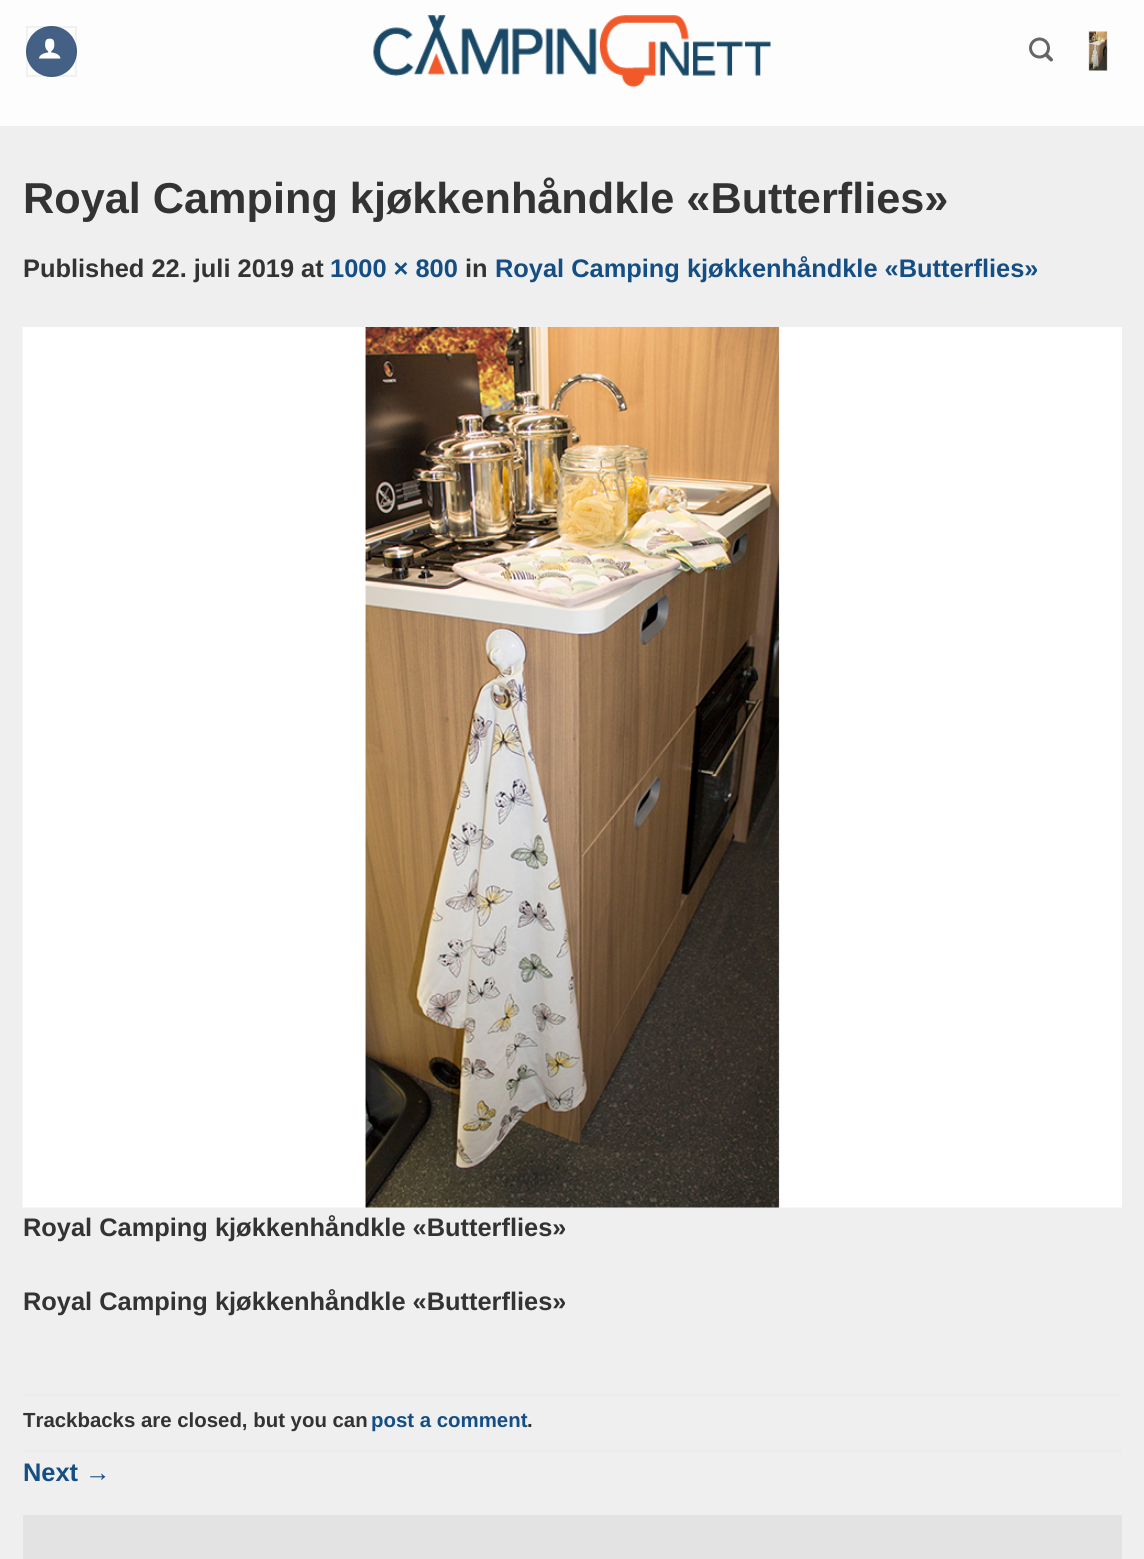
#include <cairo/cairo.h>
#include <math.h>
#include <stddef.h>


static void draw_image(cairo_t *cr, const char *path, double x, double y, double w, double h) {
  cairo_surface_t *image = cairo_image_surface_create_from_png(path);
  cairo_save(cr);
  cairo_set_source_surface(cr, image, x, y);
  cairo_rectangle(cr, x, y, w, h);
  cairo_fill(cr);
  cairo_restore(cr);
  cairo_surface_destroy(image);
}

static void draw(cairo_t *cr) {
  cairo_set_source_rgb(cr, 239 / 255.0, 239 / 255.0, 239 / 255.0);
  cairo_paint(cr);
  cairo_set_source_rgb(cr, 253 / 255.0, 253 / 255.0, 253 / 255.0);
  cairo_rectangle(cr, 0, 0, 1144, 126);
  cairo_fill(cr);
  cairo_set_source_rgb(cr, 68 / 255.0, 96 / 255.0, 132 / 255.0);
  cairo_arc(cr, 51.5, 51.5, 25.5, 0, 2 * M_PI);
  cairo_fill(cr);
  cairo_rectangle(cr, 27, 27, 49, 49);
  cairo_set_source_rgba(cr, 0, 0, 0, 0.05);
  cairo_stroke(cr);
  draw_image(cr, "images/1.png", 39, 38, 22, 21);
  draw_image(cr, "images/2.png", 373, 15, 398, 72);
  draw_image(cr, "images/3.png", 1029, 37, 24, 25);
  draw_image(cr, "images/4.png", 1088, 31, 20, 40);
  draw_image(cr, "images/5.png", 22, 327, 1100, 881);
  cairo_set_source_rgb(cr, 236 / 255.0, 236 / 255.0, 236 / 255.0);
  cairo_rectangle(cr, 23, 1394, 1099, 2);
  cairo_fill(cr);
  cairo_rectangle(cr, 23, 1449, 1099, 3);
  cairo_fill(cr);
  cairo_set_source_rgb(cr, 227 / 255.0, 227 / 255.0, 227 / 255.0);
  cairo_rectangle(cr, 23, 1515, 1099, 44);
  cairo_fill(cr);
  cairo_select_font_face(cr, "Liberation Sans", CAIRO_FONT_SLANT_NORMAL, CAIRO_FONT_WEIGHT_BOLD);
  cairo_set_font_size(cr, 43.25);
  cairo_set_source_rgb(cr, 51 / 255.0, 51 / 255.0, 51 / 255.0);
  cairo_move_to(cr, 23, 213);
  cairo_show_text(cr, "Royal Camping kjøkkenhåndkle «Butterflies»");
  cairo_set_font_size(cr, 25.4);
  cairo_move_to(cr, 23, 277);
  cairo_show_text(cr, "Published 22. juli 2019 at");
  cairo_set_source_rgb(cr, 20 / 255.0, 78 / 255.0, 132 / 255.0);
  cairo_move_to(cr, 330, 277);
  cairo_show_text(cr, "1000 × 800");
  cairo_set_source_rgb(cr, 51 / 255.0, 51 / 255.0, 51 / 255.0);
  cairo_move_to(cr, 465, 277);
  cairo_show_text(cr, "in");
  cairo_set_source_rgb(cr, 20 / 255.0, 78 / 255.0, 132 / 255.0);
  cairo_move_to(cr, 495, 277);
  cairo_show_text(cr, "Royal Camping kjøkkenhåndkle «Butterflies»");
  cairo_set_source_rgb(cr, 51 / 255.0, 51 / 255.0, 51 / 255.0);
  cairo_move_to(cr, 23, 1236);
  cairo_show_text(cr, "Royal Camping kjøkkenhåndkle «Butterflies»");
  cairo_move_to(cr, 23, 1310);
  cairo_show_text(cr, "Royal Camping kjøkkenhåndkle «Butterflies»");
  cairo_set_font_size(cr, 20.4);
  cairo_move_to(cr, 23, 1427);
  cairo_show_text(cr, "Trackbacks are closed, but you can");
  cairo_set_source_rgb(cr, 20 / 255.0, 78 / 255.0, 132 / 255.0);
  cairo_move_to(cr, 371, 1427);
  cairo_show_text(cr, "post a comment");
  cairo_set_source_rgb(cr, 51 / 255.0, 51 / 255.0, 51 / 255.0);
  cairo_move_to(cr, 527, 1427);
  cairo_show_text(cr, ".");
  cairo_set_font_size(cr, 25.4);
  cairo_set_source_rgb(cr, 20 / 255.0, 78 / 255.0, 132 / 255.0);
  cairo_move_to(cr, 23, 1481);
  cairo_show_text(cr, "Next →");
}

int main(void) {
  cairo_surface_t *surface = cairo_image_surface_create(CAIRO_FORMAT_RGB24, 1144, 1559);
  cairo_t *cr = cairo_create(surface);
  cairo_font_options_t *options = cairo_font_options_create();
  cairo_font_options_set_hint_metrics(options, CAIRO_HINT_METRICS_OFF);
  cairo_font_options_set_hint_style(options, CAIRO_HINT_STYLE_NONE);
  cairo_set_font_options(cr, options);
  cairo_set_miter_limit(cr, 4);
  draw(cr);
  cairo_surface_write_to_png(surface, "out.png");
  cairo_font_options_destroy(options);
  cairo_destroy(cr);
  cairo_surface_destroy(surface);
  return 0;
}
